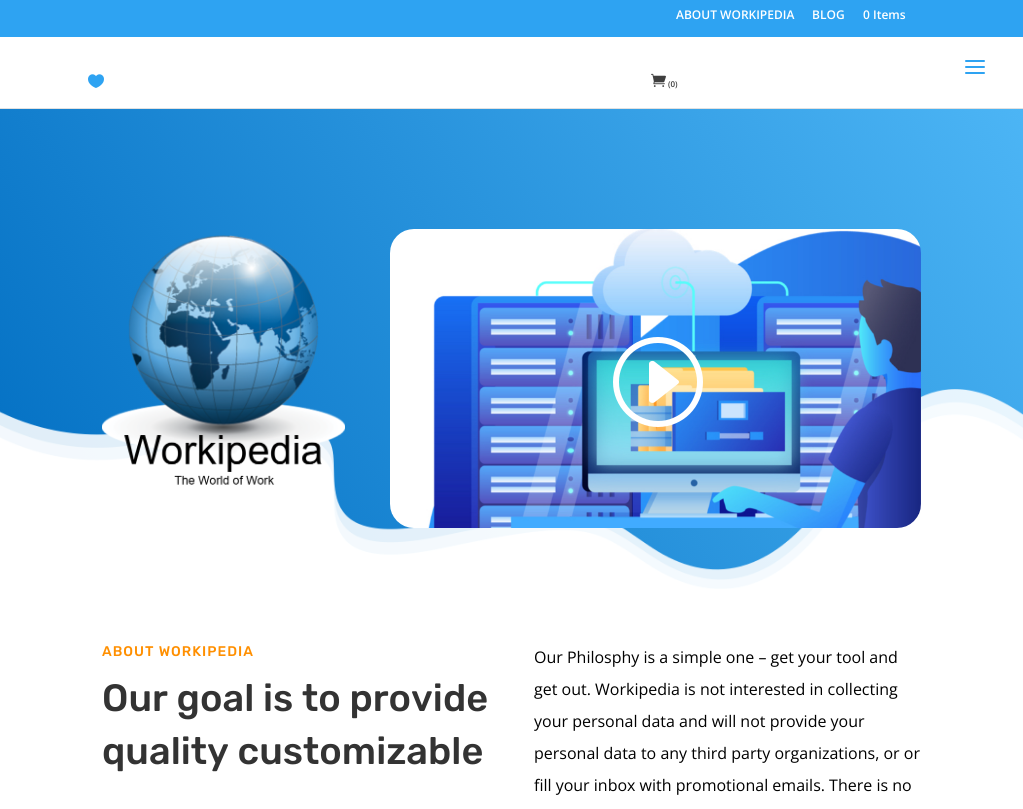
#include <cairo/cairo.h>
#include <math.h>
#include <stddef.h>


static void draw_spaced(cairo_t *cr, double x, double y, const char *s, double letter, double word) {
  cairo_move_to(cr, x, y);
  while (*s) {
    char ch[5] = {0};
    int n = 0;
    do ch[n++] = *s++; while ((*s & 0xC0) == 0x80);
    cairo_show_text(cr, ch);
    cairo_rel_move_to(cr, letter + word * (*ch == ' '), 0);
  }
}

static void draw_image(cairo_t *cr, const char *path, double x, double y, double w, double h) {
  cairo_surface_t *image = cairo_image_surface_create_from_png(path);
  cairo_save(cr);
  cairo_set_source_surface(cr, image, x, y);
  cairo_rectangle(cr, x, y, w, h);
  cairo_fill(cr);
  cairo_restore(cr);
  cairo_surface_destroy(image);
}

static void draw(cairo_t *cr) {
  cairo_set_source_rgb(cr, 1, 1, 1);
  cairo_paint(cr);
  cairo_set_source_rgb(cr, 46 / 255.0, 163 / 255.0, 242 / 255.0);
  cairo_rectangle(cr, 0, 0, 1023, 37);
  cairo_fill(cr);
  cairo_set_source_rgb(cr, 225 / 255.0, 225 / 255.0, 225 / 255.0);
  cairo_rectangle(cr, 0, 108, 1023, 1);
  cairo_fill(cr);
  draw_image(cr, "images/1.png", 965, 60, 20, 14);
  draw_image(cr, "images/2.png", 88, 74, 16, 14);
  draw_image(cr, "images/3.png", 651, 73, 15, 14);
  draw_image(cr, "images/4.png", 0, 109, 1023, 480);
  draw_image(cr, "images/5.png", 102, 235, 243, 250);
  draw_image(cr, "images/6.png", 390, 229, 531, 299);
  draw_image(cr, "images/7.png", 613, 337, 90, 90);
  cairo_select_font_face(cr, "Open Sans SemiBold", CAIRO_FONT_SLANT_NORMAL, CAIRO_FONT_WEIGHT_NORMAL);
  cairo_set_font_size(cr, 12);
  cairo_set_source_rgb(cr, 1, 1, 1);
  cairo_move_to(cr, 676, 19);
  cairo_show_text(cr, "ABOUT WORKIPEDIA");
  cairo_move_to(cr, 812, 19);
  cairo_show_text(cr, "BLOG");
  cairo_move_to(cr, 863, 19);
  cairo_show_text(cr, "0 Items");
  cairo_set_font_size(cr, 8);
  cairo_set_source_rgb(cr, 63 / 255.0, 63 / 255.0, 63 / 255.0);
  cairo_move_to(cr, 668, 87);
  cairo_show_text(cr, "(0)");
  cairo_select_font_face(cr, "Rubik Medium", CAIRO_FONT_SLANT_NORMAL, CAIRO_FONT_WEIGHT_NORMAL);
  cairo_set_font_size(cr, 14);
  cairo_set_source_rgb(cr, 1, 143 / 255.0, 0);
  draw_spaced(cr, 102, 656, "ABOUT WORKIPEDIA", 1, 0);
  cairo_set_font_size(cr, 38);
  cairo_set_source_rgb(cr, 51 / 255.0, 51 / 255.0, 51 / 255.0);
  cairo_move_to(cr, 102, 711);
  cairo_show_text(cr, "Our goal is to provide");
  cairo_move_to(cr, 102, 764);
  cairo_show_text(cr, "quality customizable");
  cairo_select_font_face(cr, "Open Sans", CAIRO_FONT_SLANT_NORMAL, CAIRO_FONT_WEIGHT_NORMAL);
  cairo_set_font_size(cr, 16);
  cairo_set_source_rgb(cr, 0, 0, 0);
  cairo_move_to(cr, 534, 663);
  cairo_show_text(cr, "Our Philosphy is a simple one – get your tool and");
  cairo_move_to(cr, 534, 695);
  cairo_show_text(cr, "get out. Workipedia is not interested in collecting");
  cairo_move_to(cr, 534, 727);
  cairo_show_text(cr, "your personal data and will not provide your");
  cairo_move_to(cr, 534, 759);
  cairo_show_text(cr, "personal data to any third party organizations, or or");
  cairo_move_to(cr, 534, 791);
  cairo_show_text(cr, "fill your inbox with promotional emails. There is no");
}

int main(void) {
  cairo_surface_t *surface = cairo_image_surface_create(CAIRO_FORMAT_RGB24, 1023, 809);
  cairo_t *cr = cairo_create(surface);
  cairo_font_options_t *options = cairo_font_options_create();
  cairo_font_options_set_hint_metrics(options, CAIRO_HINT_METRICS_OFF);
  cairo_font_options_set_hint_style(options, CAIRO_HINT_STYLE_NONE);
  cairo_set_font_options(cr, options);
  cairo_set_miter_limit(cr, 4);
  draw(cr);
  cairo_surface_write_to_png(surface, "out.png");
  cairo_font_options_destroy(options);
  cairo_destroy(cr);
  cairo_surface_destroy(surface);
  return 0;
}
